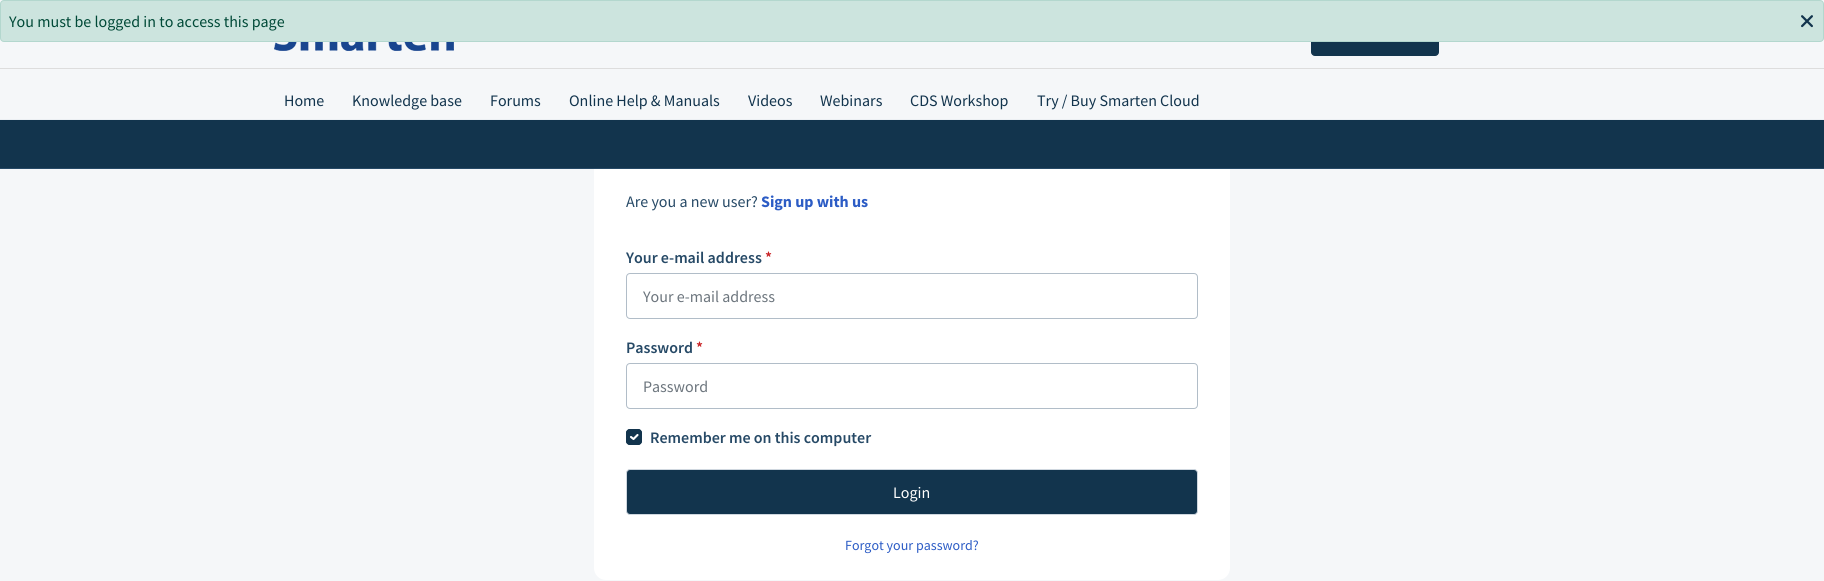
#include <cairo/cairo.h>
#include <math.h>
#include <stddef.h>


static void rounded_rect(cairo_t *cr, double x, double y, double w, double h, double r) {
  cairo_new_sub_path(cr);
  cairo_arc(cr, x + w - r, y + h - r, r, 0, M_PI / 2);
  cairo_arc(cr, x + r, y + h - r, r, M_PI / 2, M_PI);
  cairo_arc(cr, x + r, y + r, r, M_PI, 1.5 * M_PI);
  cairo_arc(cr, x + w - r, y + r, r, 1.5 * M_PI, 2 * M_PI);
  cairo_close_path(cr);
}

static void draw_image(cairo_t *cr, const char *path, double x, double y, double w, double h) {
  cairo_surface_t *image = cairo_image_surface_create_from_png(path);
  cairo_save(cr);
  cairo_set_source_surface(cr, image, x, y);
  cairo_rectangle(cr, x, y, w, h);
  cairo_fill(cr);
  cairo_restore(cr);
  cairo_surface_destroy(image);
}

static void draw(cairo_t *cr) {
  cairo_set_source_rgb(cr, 245 / 255.0, 247 / 255.0, 249 / 255.0);
  cairo_paint(cr);
  cairo_set_source_rgb(cr, 18 / 255.0, 52 / 255.0, 77 / 255.0);
  rounded_rect(cr, 1311.5, 10.5, 127, 45, 3.5);
  cairo_fill_preserve(cr);
  cairo_set_line_width(cr, 1);
  cairo_stroke(cr);
  cairo_set_source_rgb(cr, 204 / 255.0, 228 / 255.0, 222 / 255.0);
  rounded_rect(cr, 0.5, 0.5, 1823, 41, 3.5);
  cairo_fill_preserve(cr);
  cairo_set_source_rgb(cr, 179 / 255.0, 215 / 255.0, 206 / 255.0);
  cairo_stroke(cr);
  draw_image(cr, "images/1.png", 1801, 15, 12, 13);
  cairo_set_source_rgb(cr, 1, 1, 1);
  rounded_rect(cr, 594, 119, 636, 461, 12);
  cairo_fill(cr);
  rounded_rect(cr, 626.5, 273.5, 571, 45, 3.5);
  cairo_set_source_rgb(cr, 177 / 255.0, 189 / 255.0, 200 / 255.0);
  cairo_stroke(cr);
  rounded_rect(cr, 626.5, 363.5, 571, 45, 3.5);
  cairo_stroke(cr);
  cairo_set_source_rgb(cr, 18 / 255.0, 52 / 255.0, 77 / 255.0);
  rounded_rect(cr, 626, 429, 16, 16, 4);
  cairo_fill(cr);
  cairo_new_path(cr);
  cairo_move_to(cr, 631, 437);
  cairo_line_to(cr, 633.5, 439);
  cairo_line_to(cr, 637.5, 435);
  cairo_set_source_rgb(cr, 1, 1, 1);
  cairo_set_line_width(cr, 2.1);
  cairo_set_line_cap(cr, CAIRO_LINE_CAP_ROUND);
  cairo_set_line_join(cr, CAIRO_LINE_JOIN_ROUND);
  cairo_stroke(cr);
  rounded_rect(cr, 626.5, 429.5, 15, 15, 3.5);
  cairo_set_source_rgb(cr, 18 / 255.0, 52 / 255.0, 77 / 255.0);
  cairo_set_line_width(cr, 1);
  cairo_set_line_cap(cr, CAIRO_LINE_CAP_BUTT);
  cairo_set_line_join(cr, CAIRO_LINE_JOIN_MITER);
  cairo_stroke(cr);
  rounded_rect(cr, 626.5, 469.5, 571, 45, 3.5);
  cairo_fill_preserve(cr);
  cairo_set_source_rgb(cr, 207 / 255.0, 215 / 255.0, 223 / 255.0);
  cairo_stroke(cr);
  cairo_set_source_rgb(cr, 18 / 255.0, 52 / 255.0, 77 / 255.0);
  cairo_rectangle(cr, 0, 120, 1824, 48);
  cairo_fill(cr);
  cairo_set_source_rgb(cr, 38 / 255.0, 73 / 255.0, 102 / 255.0);
  cairo_rectangle(cr, 0, 168, 1824, 1);
  cairo_fill(cr);
  cairo_set_source_rgb(cr, 235 / 255.0, 239 / 255.0, 243 / 255.0);
  cairo_rectangle(cr, 0, 119, 1824, 1);
  cairo_fill(cr);
  cairo_set_source_rgb(cr, 221 / 255.0, 221 / 255.0, 221 / 255.0);
  cairo_rectangle(cr, 0, 68, 1824, 1);
  cairo_fill(cr);
  draw_image(cr, "images/2.png", 274, 42, 180, 9);
  cairo_select_font_face(cr, "Source Sans Pro", CAIRO_FONT_SLANT_NORMAL, CAIRO_FONT_WEIGHT_NORMAL);
  cairo_set_font_size(cr, 16);
  cairo_set_source_rgb(cr, 0, 73 / 255.0, 55 / 255.0);
  cairo_move_to(cr, 9, 27);
  cairo_show_text(cr, "You must be logged in to access this page");
  cairo_set_source_rgb(cr, 38 / 255.0, 73 / 255.0, 102 / 255.0);
  cairo_move_to(cr, 626, 207);
  cairo_show_text(cr, "Are you a new user?");
  cairo_select_font_face(cr, "Source Sans Pro", CAIRO_FONT_SLANT_NORMAL, CAIRO_FONT_WEIGHT_BOLD);
  cairo_set_source_rgb(cr, 44 / 255.0, 92 / 255.0, 197 / 255.0);
  cairo_move_to(cr, 761, 207);
  cairo_show_text(cr, "Sign up with us");
  cairo_select_font_face(cr, "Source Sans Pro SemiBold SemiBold", CAIRO_FONT_SLANT_NORMAL, CAIRO_FONT_WEIGHT_NORMAL);
  cairo_set_source_rgb(cr, 38 / 255.0, 73 / 255.0, 102 / 255.0);
  cairo_move_to(cr, 626, 263);
  cairo_show_text(cr, "Your e-mail address");
  cairo_set_source_rgb(cr, 200 / 255.0, 33 / 255.0, 36 / 255.0);
  cairo_move_to(cr, 765, 263);
  cairo_show_text(cr, "*");
  cairo_select_font_face(cr, "Source Sans Pro", CAIRO_FONT_SLANT_NORMAL, CAIRO_FONT_WEIGHT_NORMAL);
  cairo_set_source_rgb(cr, 108 / 255.0, 117 / 255.0, 125 / 255.0);
  cairo_move_to(cr, 643, 302);
  cairo_show_text(cr, "Your e-mail address");
  cairo_select_font_face(cr, "Source Sans Pro SemiBold SemiBold", CAIRO_FONT_SLANT_NORMAL, CAIRO_FONT_WEIGHT_NORMAL);
  cairo_set_source_rgb(cr, 38 / 255.0, 73 / 255.0, 102 / 255.0);
  cairo_move_to(cr, 626, 353);
  cairo_show_text(cr, "Password");
  cairo_set_source_rgb(cr, 200 / 255.0, 33 / 255.0, 36 / 255.0);
  cairo_move_to(cr, 696, 353);
  cairo_show_text(cr, "*");
  cairo_select_font_face(cr, "Source Sans Pro", CAIRO_FONT_SLANT_NORMAL, CAIRO_FONT_WEIGHT_NORMAL);
  cairo_set_source_rgb(cr, 108 / 255.0, 117 / 255.0, 125 / 255.0);
  cairo_move_to(cr, 643, 392);
  cairo_show_text(cr, "Password");
  cairo_select_font_face(cr, "Source Sans Pro SemiBold SemiBold", CAIRO_FONT_SLANT_NORMAL, CAIRO_FONT_WEIGHT_NORMAL);
  cairo_set_source_rgb(cr, 38 / 255.0, 73 / 255.0, 102 / 255.0);
  cairo_move_to(cr, 650, 443);
  cairo_show_text(cr, "Remember me on this computer");
  cairo_select_font_face(cr, "Source Sans Pro", CAIRO_FONT_SLANT_NORMAL, CAIRO_FONT_WEIGHT_NORMAL);
  cairo_set_source_rgb(cr, 1, 1, 1);
  cairo_move_to(cr, 893, 498);
  cairo_show_text(cr, "Login");
  cairo_set_font_size(cr, 14);
  cairo_set_source_rgb(cr, 44 / 255.0, 92 / 255.0, 197 / 255.0);
  cairo_move_to(cr, 845, 550);
  cairo_show_text(cr, "Forgot your password?");
  cairo_set_font_size(cr, 16);
  cairo_set_source_rgb(cr, 18 / 255.0, 52 / 255.0, 77 / 255.0);
  cairo_move_to(cr, 284, 106);
  cairo_show_text(cr, "Home");
  cairo_move_to(cr, 352, 106);
  cairo_show_text(cr, "Knowledge base");
  cairo_move_to(cr, 490, 106);
  cairo_show_text(cr, "Forums");
  cairo_move_to(cr, 569, 106);
  cairo_show_text(cr, "Online Help & Manuals");
  cairo_move_to(cr, 748, 106);
  cairo_show_text(cr, "Videos");
  cairo_move_to(cr, 820, 106);
  cairo_show_text(cr, "Webinars");
  cairo_move_to(cr, 910, 106);
  cairo_show_text(cr, "CDS Workshop");
  cairo_move_to(cr, 1037, 106);
  cairo_show_text(cr, "Try / Buy Smarten Cloud");
}

int main(void) {
  cairo_surface_t *surface = cairo_image_surface_create(CAIRO_FORMAT_RGB24, 1824, 581);
  cairo_t *cr = cairo_create(surface);
  cairo_font_options_t *options = cairo_font_options_create();
  cairo_font_options_set_hint_metrics(options, CAIRO_HINT_METRICS_OFF);
  cairo_font_options_set_hint_style(options, CAIRO_HINT_STYLE_NONE);
  cairo_set_font_options(cr, options);
  cairo_set_miter_limit(cr, 4);
  draw(cr);
  cairo_surface_write_to_png(surface, "out.png");
  cairo_font_options_destroy(options);
  cairo_destroy(cr);
  cairo_surface_destroy(surface);
  return 0;
}
